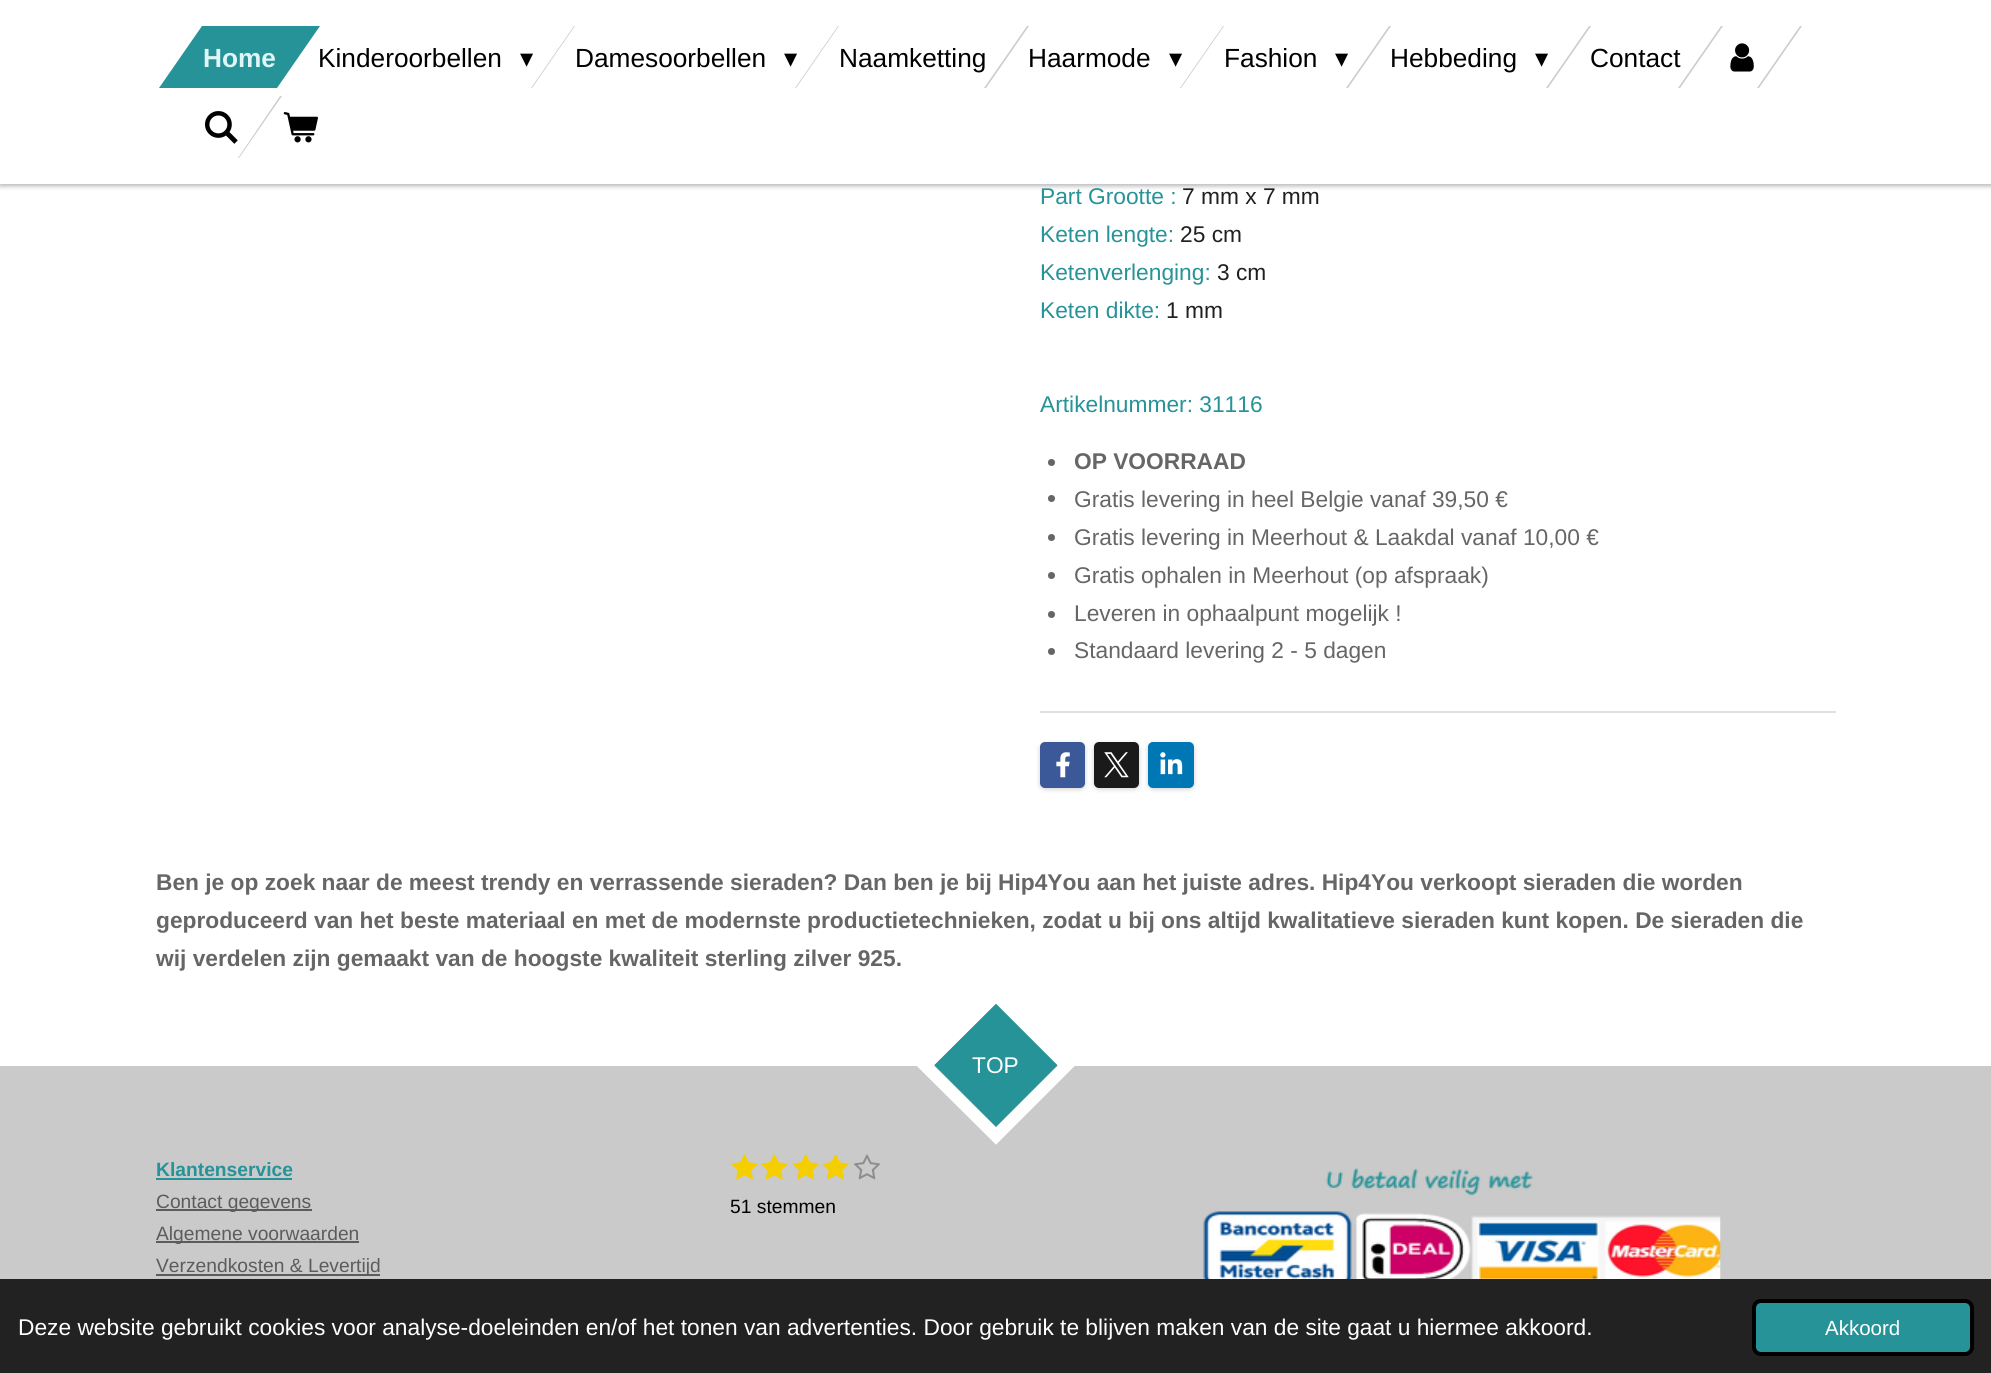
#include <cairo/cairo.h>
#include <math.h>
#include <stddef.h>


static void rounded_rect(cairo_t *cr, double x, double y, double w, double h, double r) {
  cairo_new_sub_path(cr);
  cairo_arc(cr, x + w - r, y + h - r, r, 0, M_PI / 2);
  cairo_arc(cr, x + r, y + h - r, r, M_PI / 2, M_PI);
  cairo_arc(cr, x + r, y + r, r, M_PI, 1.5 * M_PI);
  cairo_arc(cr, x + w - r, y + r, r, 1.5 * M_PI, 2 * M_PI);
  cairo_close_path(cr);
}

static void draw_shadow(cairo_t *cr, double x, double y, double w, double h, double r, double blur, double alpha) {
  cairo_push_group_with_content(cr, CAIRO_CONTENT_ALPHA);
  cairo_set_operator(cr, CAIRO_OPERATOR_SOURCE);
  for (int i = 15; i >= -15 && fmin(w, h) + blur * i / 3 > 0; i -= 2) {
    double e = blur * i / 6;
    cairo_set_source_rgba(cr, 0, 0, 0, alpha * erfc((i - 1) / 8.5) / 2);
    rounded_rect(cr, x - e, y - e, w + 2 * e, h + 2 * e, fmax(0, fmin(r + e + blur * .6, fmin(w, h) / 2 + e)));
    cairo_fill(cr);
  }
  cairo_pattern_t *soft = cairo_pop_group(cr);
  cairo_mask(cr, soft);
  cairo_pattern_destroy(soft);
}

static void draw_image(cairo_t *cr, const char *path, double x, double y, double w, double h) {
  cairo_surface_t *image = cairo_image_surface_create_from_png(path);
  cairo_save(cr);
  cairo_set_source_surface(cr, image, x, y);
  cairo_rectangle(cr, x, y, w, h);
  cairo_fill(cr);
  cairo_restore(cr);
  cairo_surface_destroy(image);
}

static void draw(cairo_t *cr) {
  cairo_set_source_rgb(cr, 1, 1, 1);
  cairo_paint(cr);
  cairo_set_source_rgb(cr, 0, 0, 0);
  draw_shadow(cr, 0, -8, 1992, 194, 0, 2.5, 0.3);
  cairo_set_source_rgb(cr, 1, 1, 1);
  cairo_rectangle(cr, 0, 0, 1991, 184);
  cairo_fill(cr);
  cairo_set_source_rgb(cr, 38 / 255.0, 147 / 255.0, 152 / 255.0);
  cairo_new_path(cr);
  cairo_move_to(cr, 202, 26);
  cairo_line_to(cr, 320, 26);
  cairo_line_to(cr, 277, 88);
  cairo_line_to(cr, 159, 88);
  cairo_close_path(cr);
  cairo_fill(cr);
  cairo_set_source_rgb(cr, 204 / 255.0, 204 / 255.0, 204 / 255.0);
  cairo_new_path(cr);
  cairo_move_to(cr, 574, 26);
  cairo_line_to(cr, 575, 26);
  cairo_line_to(cr, 532, 88);
  cairo_line_to(cr, 531, 88);
  cairo_close_path(cr);
  cairo_fill(cr);
  cairo_new_path(cr);
  cairo_move_to(cr, 838, 26);
  cairo_line_to(cr, 839, 26);
  cairo_line_to(cr, 796, 88);
  cairo_line_to(cr, 795, 88);
  cairo_close_path(cr);
  cairo_fill(cr);
  cairo_new_path(cr);
  cairo_move_to(cr, 1027, 26);
  cairo_line_to(cr, 1029, 26);
  cairo_line_to(cr, 986, 88);
  cairo_line_to(cr, 984, 88);
  cairo_close_path(cr);
  cairo_fill(cr);
  cairo_new_path(cr);
  cairo_move_to(cr, 1223, 26);
  cairo_line_to(cr, 1224, 26);
  cairo_line_to(cr, 1181, 88);
  cairo_line_to(cr, 1180, 88);
  cairo_close_path(cr);
  cairo_fill(cr);
  cairo_new_path(cr);
  cairo_move_to(cr, 1389, 26);
  cairo_line_to(cr, 1391, 26);
  cairo_line_to(cr, 1348, 88);
  cairo_line_to(cr, 1346, 88);
  cairo_close_path(cr);
  cairo_fill(cr);
  cairo_new_path(cr);
  cairo_move_to(cr, 1589, 26);
  cairo_line_to(cr, 1591, 26);
  cairo_line_to(cr, 1548, 88);
  cairo_line_to(cr, 1546, 88);
  cairo_close_path(cr);
  cairo_fill(cr);
  cairo_new_path(cr);
  cairo_move_to(cr, 1721, 26);
  cairo_line_to(cr, 1723, 26);
  cairo_line_to(cr, 1680, 88);
  cairo_line_to(cr, 1678, 88);
  cairo_close_path(cr);
  cairo_fill(cr);
  draw_image(cr, "images/1.png", 1730, 43, 24, 29);
  cairo_new_path(cr);
  cairo_move_to(cr, 1800, 26);
  cairo_line_to(cr, 1802, 26);
  cairo_line_to(cr, 1759, 88);
  cairo_line_to(cr, 1757, 88);
  cairo_close_path(cr);
  cairo_fill(cr);
  draw_image(cr, "images/2.png", 205, 111, 33, 33);
  cairo_new_path(cr);
  cairo_move_to(cr, 280, 96);
  cairo_line_to(cr, 282, 96);
  cairo_line_to(cr, 239, 158);
  cairo_line_to(cr, 238, 158);
  cairo_close_path(cr);
  cairo_fill(cr);
  draw_image(cr, "images/3.png", 283, 112, 35, 31);
  cairo_set_source_rgb(cr, 102 / 255.0, 102 / 255.0, 102 / 255.0);
  cairo_arc(cr, 1051.5, 462.5, 3.5, 0, 2 * M_PI);
  cairo_fill(cr);
  cairo_arc(cr, 1051.5, 498.5, 3.5, 0, 2 * M_PI);
  cairo_fill(cr);
  cairo_arc(cr, 1051.5, 537.5, 3.5, 0, 2 * M_PI);
  cairo_fill(cr);
  cairo_arc(cr, 1051.5, 575.5, 3.5, 0, 2 * M_PI);
  cairo_fill(cr);
  cairo_arc(cr, 1051.5, 614.5, 3.5, 0, 2 * M_PI);
  cairo_fill(cr);
  cairo_arc(cr, 1051.5, 651.5, 3.5, 0, 2 * M_PI);
  cairo_fill(cr);
  cairo_set_source_rgb(cr, 224 / 255.0, 224 / 255.0, 224 / 255.0);
  cairo_rectangle(cr, 1040, 711, 796, 2);
  cairo_fill(cr);
  cairo_set_source_rgb(cr, 0, 0, 0);
  draw_shadow(cr, 1040, 744, 45, 45, 5, 2.5, 0.2);
  cairo_set_source_rgb(cr, 59 / 255.0, 89 / 255.0, 152 / 255.0);
  rounded_rect(cr, 1040, 742, 45, 46, 5);
  cairo_fill(cr);
  draw_image(cr, "images/4.png", 1056, 752, 14, 26);
  cairo_set_source_rgb(cr, 0, 0, 0);
  draw_shadow(cr, 1094, 744, 45, 45, 5, 2.5, 0.2);
  cairo_set_source_rgb(cr, 26 / 255.0, 26 / 255.0, 26 / 255.0);
  rounded_rect(cr, 1094, 742, 45, 46, 5);
  cairo_fill(cr);
  draw_image(cr, "images/5.png", 1104, 752, 25, 26);
  cairo_set_source_rgb(cr, 0, 0, 0);
  draw_shadow(cr, 1148, 744, 46, 45, 5, 2.5, 0.2);
  cairo_set_source_rgb(cr, 0, 119 / 255.0, 181 / 255.0);
  rounded_rect(cr, 1148, 742, 46, 46, 5);
  cairo_fill(cr);
  draw_image(cr, "images/6.png", 1160, 752, 23, 23);
  cairo_set_source_rgb(cr, 202 / 255.0, 202 / 255.0, 202 / 255.0);
  cairo_rectangle(cr, 0, 1066, 1991, 213);
  cairo_fill(cr);
  cairo_set_source_rgb(cr, 38 / 255.0, 147 / 255.0, 152 / 255.0);
  cairo_new_path(cr);
  cairo_move_to(cr, 996, 1003);
  cairo_line_to(cr, 1058, 1065);
  cairo_line_to(cr, 996, 1127);
  cairo_line_to(cr, 934, 1065);
  cairo_close_path(cr);
  cairo_fill(cr);
  cairo_new_path(cr);
  cairo_move_to(cr, 996, 995);
  cairo_line_to(cr, 1066.5, 1065.5);
  cairo_line_to(cr, 996, 1136);
  cairo_line_to(cr, 925, 1065.5);
  cairo_close_path(cr);
  cairo_set_source_rgb(cr, 1, 1, 1);
  cairo_set_line_width(cr, 12.3);
  cairo_stroke(cr);
  cairo_set_source_rgb(cr, 38 / 255.0, 147 / 255.0, 152 / 255.0);
  cairo_rectangle(cr, 156, 1178, 136, 2);
  cairo_fill(cr);
  cairo_set_source_rgb(cr, 92 / 255.0, 92 / 255.0, 92 / 255.0);
  cairo_rectangle(cr, 156, 1209, 156, 2);
  cairo_fill(cr);
  cairo_rectangle(cr, 156, 1241, 203, 2);
  cairo_fill(cr);
  cairo_rectangle(cr, 156, 1274, 224, 2);
  cairo_fill(cr);
  draw_image(cr, "images/7.png", 731, 1154, 27, 26);
  draw_image(cr, "images/8.png", 761, 1154, 27, 26);
  draw_image(cr, "images/9.png", 792, 1154, 27, 26);
  draw_image(cr, "images/10.png", 823, 1154, 26, 26);
  draw_image(cr, "images/11.png", 854, 1154, 26, 26);
  draw_image(cr, "images/12.png", 1203, 1168, 518, 111);
  cairo_set_source_rgb(cr, 34 / 255.0, 34 / 255.0, 34 / 255.0);
  cairo_rectangle(cr, 0, 1279, 1991, 94);
  cairo_fill(cr);
  cairo_set_source_rgb(cr, 38 / 255.0, 147 / 255.0, 152 / 255.0);
  rounded_rect(cr, 1754, 1301, 218, 53, 7);
  cairo_fill_preserve(cr);
  cairo_set_source_rgb(cr, 0, 0, 0);
  cairo_set_line_width(cr, 4);
  cairo_stroke(cr);
  cairo_select_font_face(cr, "Liberation Sans", CAIRO_FONT_SLANT_NORMAL, CAIRO_FONT_WEIGHT_BOLD);
  cairo_set_font_size(cr, 26.25);
  cairo_set_source_rgb(cr, 223 / 255.0, 246 / 255.0, 247 / 255.0);
  cairo_move_to(cr, 203, 67);
  cairo_show_text(cr, "Home");
  cairo_select_font_face(cr, "Liberation Sans", CAIRO_FONT_SLANT_NORMAL, CAIRO_FONT_WEIGHT_NORMAL);
  cairo_set_source_rgb(cr, 0, 0, 0);
  cairo_move_to(cr, 318, 67);
  cairo_show_text(cr, "Kinderoorbellen");
  cairo_select_font_face(cr, "DejaVu Sans", CAIRO_FONT_SLANT_NORMAL, CAIRO_FONT_WEIGHT_NORMAL);
  cairo_move_to(cr, 520, 67);
  cairo_show_text(cr, "▾");
  cairo_select_font_face(cr, "Liberation Sans", CAIRO_FONT_SLANT_NORMAL, CAIRO_FONT_WEIGHT_NORMAL);
  cairo_move_to(cr, 575, 67);
  cairo_show_text(cr, "Damesoorbellen");
  cairo_select_font_face(cr, "DejaVu Sans", CAIRO_FONT_SLANT_NORMAL, CAIRO_FONT_WEIGHT_NORMAL);
  cairo_move_to(cr, 784, 67);
  cairo_show_text(cr, "▾");
  cairo_select_font_face(cr, "Liberation Sans", CAIRO_FONT_SLANT_NORMAL, CAIRO_FONT_WEIGHT_NORMAL);
  cairo_move_to(cr, 839, 67);
  cairo_show_text(cr, "Naamketting");
  cairo_move_to(cr, 1028, 67);
  cairo_show_text(cr, "Haarmode");
  cairo_select_font_face(cr, "DejaVu Sans", CAIRO_FONT_SLANT_NORMAL, CAIRO_FONT_WEIGHT_NORMAL);
  cairo_move_to(cr, 1169, 67);
  cairo_show_text(cr, "▾");
  cairo_select_font_face(cr, "Liberation Sans", CAIRO_FONT_SLANT_NORMAL, CAIRO_FONT_WEIGHT_NORMAL);
  cairo_move_to(cr, 1224, 67);
  cairo_show_text(cr, "Fashion");
  cairo_select_font_face(cr, "DejaVu Sans", CAIRO_FONT_SLANT_NORMAL, CAIRO_FONT_WEIGHT_NORMAL);
  cairo_move_to(cr, 1335, 67);
  cairo_show_text(cr, "▾");
  cairo_select_font_face(cr, "Liberation Sans", CAIRO_FONT_SLANT_NORMAL, CAIRO_FONT_WEIGHT_NORMAL);
  cairo_move_to(cr, 1390, 67);
  cairo_show_text(cr, "Hebbeding");
  cairo_select_font_face(cr, "DejaVu Sans", CAIRO_FONT_SLANT_NORMAL, CAIRO_FONT_WEIGHT_NORMAL);
  cairo_move_to(cr, 1535, 67);
  cairo_show_text(cr, "▾");
  cairo_select_font_face(cr, "Liberation Sans", CAIRO_FONT_SLANT_NORMAL, CAIRO_FONT_WEIGHT_NORMAL);
  cairo_move_to(cr, 1590, 67);
  cairo_show_text(cr, "Contact");
  cairo_set_font_size(cr, 22.75);
  cairo_set_source_rgb(cr, 38 / 255.0, 147 / 255.0, 152 / 255.0);
  cairo_move_to(cr, 1040, 204);
  cairo_show_text(cr, "Part Grootte :");
  cairo_set_source_rgb(cr, 32 / 255.0, 32 / 255.0, 32 / 255.0);
  cairo_move_to(cr, 1182, 204);
  cairo_show_text(cr, "7 mm x 7 mm");
  cairo_set_source_rgb(cr, 38 / 255.0, 147 / 255.0, 152 / 255.0);
  cairo_move_to(cr, 1040, 242);
  cairo_show_text(cr, "Keten lengte:");
  cairo_set_source_rgb(cr, 32 / 255.0, 32 / 255.0, 32 / 255.0);
  cairo_move_to(cr, 1180, 242);
  cairo_show_text(cr, "25 cm");
  cairo_set_source_rgb(cr, 38 / 255.0, 147 / 255.0, 152 / 255.0);
  cairo_move_to(cr, 1040, 280);
  cairo_show_text(cr, "Ketenverlenging:");
  cairo_set_source_rgb(cr, 32 / 255.0, 32 / 255.0, 32 / 255.0);
  cairo_move_to(cr, 1217, 280);
  cairo_show_text(cr, "3 cm");
  cairo_set_source_rgb(cr, 38 / 255.0, 147 / 255.0, 152 / 255.0);
  cairo_move_to(cr, 1040, 318);
  cairo_show_text(cr, "Keten dikte:");
  cairo_set_source_rgb(cr, 32 / 255.0, 32 / 255.0, 32 / 255.0);
  cairo_move_to(cr, 1166, 318);
  cairo_show_text(cr, "1 mm");
  cairo_set_source_rgb(cr, 38 / 255.0, 147 / 255.0, 152 / 255.0);
  cairo_move_to(cr, 1040, 412);
  cairo_show_text(cr, "Artikelnummer: 31116");
  cairo_select_font_face(cr, "Liberation Sans", CAIRO_FONT_SLANT_NORMAL, CAIRO_FONT_WEIGHT_BOLD);
  cairo_set_source_rgb(cr, 102 / 255.0, 102 / 255.0, 102 / 255.0);
  cairo_move_to(cr, 1074, 469);
  cairo_show_text(cr, "OP VOORRAAD");
  cairo_select_font_face(cr, "Liberation Sans", CAIRO_FONT_SLANT_NORMAL, CAIRO_FONT_WEIGHT_NORMAL);
  cairo_move_to(cr, 1074, 507);
  cairo_show_text(cr, "Gratis levering in heel Belgie vanaf 39,50 €");
  cairo_move_to(cr, 1074, 545);
  cairo_show_text(cr, "Gratis levering in Meerhout & Laakdal vanaf 10,00 €");
  cairo_move_to(cr, 1074, 583);
  cairo_show_text(cr, "Gratis ophalen in Meerhout (op afspraak)");
  cairo_move_to(cr, 1074, 621);
  cairo_show_text(cr, "Leveren in ophaalpunt mogelijk !");
  cairo_move_to(cr, 1074, 658);
  cairo_show_text(cr, "Standaard levering 2 - 5 dagen");
  cairo_select_font_face(cr, "Liberation Sans", CAIRO_FONT_SLANT_NORMAL, CAIRO_FONT_WEIGHT_BOLD);
  cairo_move_to(cr, 156, 890);
  cairo_show_text(cr, "Ben je op zoek naar de meest trendy en verrassende sieraden? Dan ben je bij Hip4You aan het juiste adres. Hip4You verkoopt sieraden die worden");
  cairo_move_to(cr, 156, 928);
  cairo_show_text(cr, "geproduceerd van het beste materiaal en met de modernste productietechnieken, zodat u bij ons altijd kwalitatieve sieraden kunt kopen. De sieraden die");
  cairo_move_to(cr, 156, 966);
  cairo_show_text(cr, "wij verdelen zijn gemaakt van de hoogste kwaliteit sterling zilver 925.");
  cairo_select_font_face(cr, "Liberation Sans", CAIRO_FONT_SLANT_NORMAL, CAIRO_FONT_WEIGHT_NORMAL);
  cairo_set_source_rgb(cr, 1, 1, 1);
  cairo_move_to(cr, 972, 1073);
  cairo_show_text(cr, "TOP");
  cairo_select_font_face(cr, "Liberation Sans", CAIRO_FONT_SLANT_NORMAL, CAIRO_FONT_WEIGHT_BOLD);
  cairo_set_font_size(cr, 19.25);
  cairo_set_source_rgb(cr, 38 / 255.0, 147 / 255.0, 152 / 255.0);
  cairo_move_to(cr, 156, 1176);
  cairo_show_text(cr, "Klantenservice");
  cairo_select_font_face(cr, "Liberation Sans", CAIRO_FONT_SLANT_NORMAL, CAIRO_FONT_WEIGHT_NORMAL);
  cairo_set_source_rgb(cr, 92 / 255.0, 92 / 255.0, 92 / 255.0);
  cairo_move_to(cr, 156, 1208);
  cairo_show_text(cr, "Contact gegevens");
  cairo_move_to(cr, 156, 1240);
  cairo_show_text(cr, "Algemene voorwaarden");
  cairo_move_to(cr, 156, 1272);
  cairo_show_text(cr, "Verzendkosten & Levertijd");
  cairo_set_source_rgb(cr, 0, 0, 0);
  cairo_move_to(cr, 730, 1213);
  cairo_show_text(cr, "51 stemmen");
  cairo_set_font_size(cr, 22.75);
  cairo_set_source_rgb(cr, 1, 1, 1);
  cairo_move_to(cr, 18, 1335);
  cairo_show_text(cr, "Deze website gebruikt cookies voor analyse-doeleinden en/of het tonen van advertenties. Door gebruik te blijven maken van de site gaat u hiermee akkoord.");
  cairo_set_font_size(cr, 20.5);
  cairo_move_to(cr, 1825, 1335);
  cairo_show_text(cr, "Akkoord");
}

int main(void) {
  cairo_surface_t *surface = cairo_image_surface_create(CAIRO_FORMAT_RGB24, 1991, 1373);
  cairo_t *cr = cairo_create(surface);
  cairo_font_options_t *options = cairo_font_options_create();
  cairo_font_options_set_hint_metrics(options, CAIRO_HINT_METRICS_OFF);
  cairo_font_options_set_hint_style(options, CAIRO_HINT_STYLE_NONE);
  cairo_set_font_options(cr, options);
  cairo_set_miter_limit(cr, 4);
  draw(cr);
  cairo_surface_write_to_png(surface, "out.png");
  cairo_font_options_destroy(options);
  cairo_destroy(cr);
  cairo_surface_destroy(surface);
  return 0;
}
